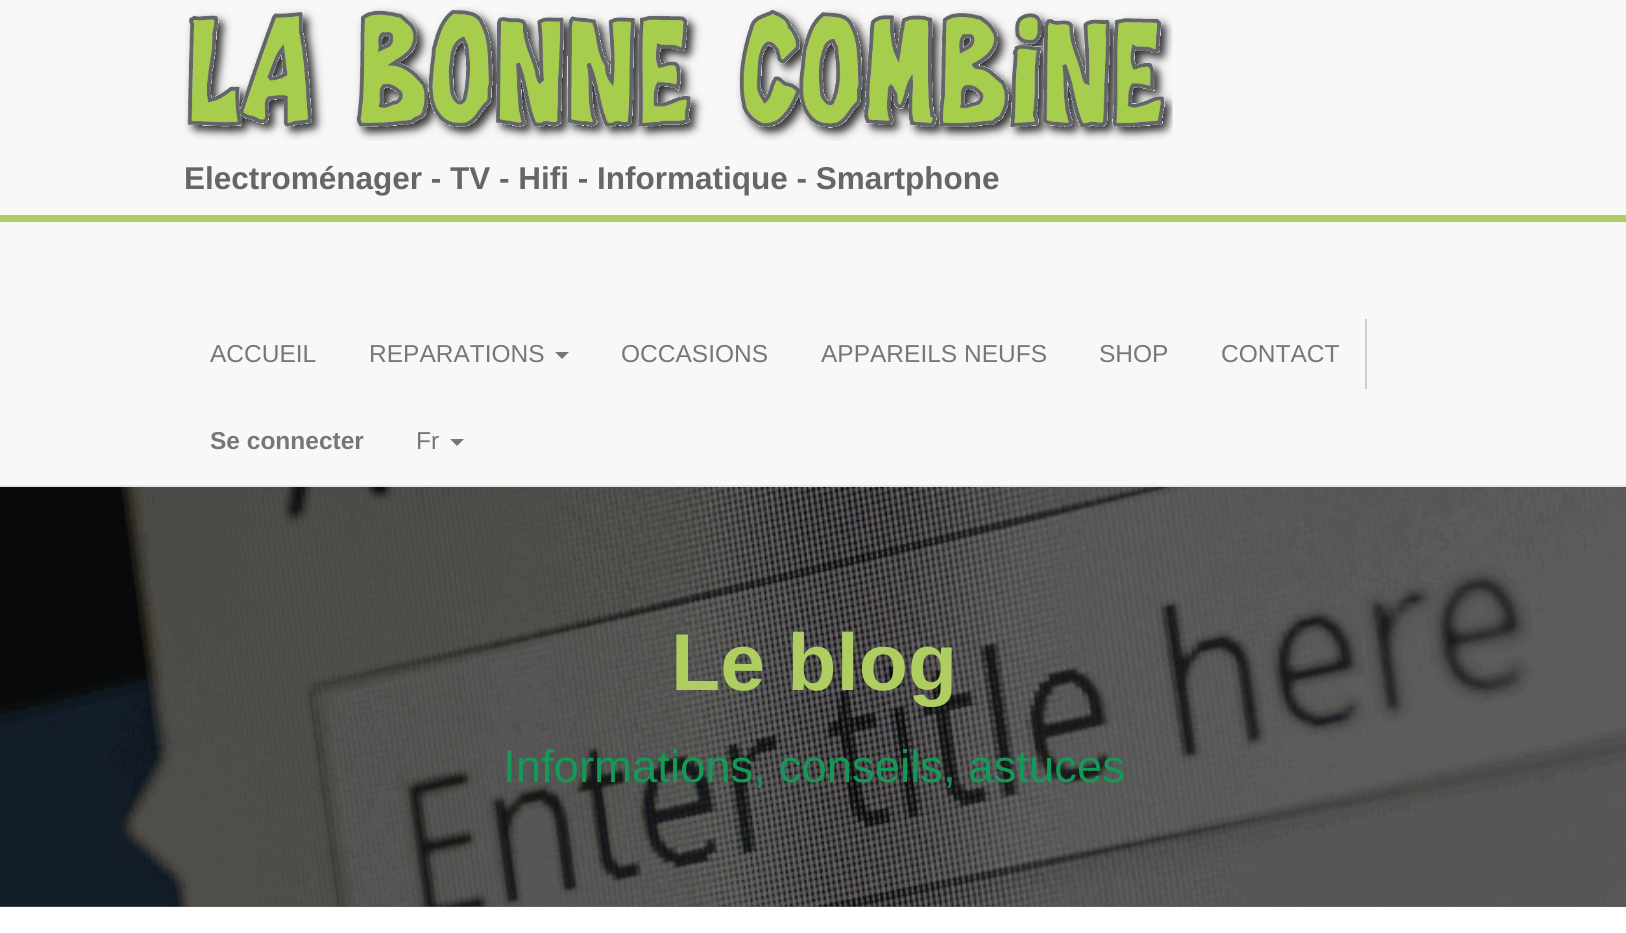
#include <cairo/cairo.h>
#include <math.h>
#include <stddef.h>


static void draw_image(cairo_t *cr, const char *path, double x, double y, double w, double h) {
  cairo_surface_t *image = cairo_image_surface_create_from_png(path);
  cairo_save(cr);
  cairo_set_source_surface(cr, image, x, y);
  cairo_rectangle(cr, x, y, w, h);
  cairo_fill(cr);
  cairo_restore(cr);
  cairo_surface_destroy(image);
}

static void draw(cairo_t *cr) {
  cairo_set_source_rgb(cr, 1, 1, 1);
  cairo_paint(cr);
  cairo_set_source_rgb(cr, 102 / 255.0, 102 / 255.0, 102 / 255.0);
  cairo_rectangle(cr, 0, 906, 1626, 1);
  cairo_fill(cr);
  cairo_set_source_rgb(cr, 248 / 255.0, 248 / 255.0, 248 / 255.0);
  cairo_rectangle(cr, 0, 0, 1626, 215);
  cairo_fill(cr);
  draw_image(cr, "images/1.png", 184, 7, 989, 134);
  cairo_set_source_rgb(cr, 174 / 255.0, 206 / 255.0, 97 / 255.0);
  cairo_rectangle(cr, 0, 215, 1626, 7);
  cairo_fill(cr);
  cairo_set_source_rgb(cr, 248 / 255.0, 248 / 255.0, 248 / 255.0);
  cairo_rectangle(cr, 0, 222, 1626, 263);
  cairo_fill(cr);
  cairo_set_source_rgb(cr, 231 / 255.0, 231 / 255.0, 231 / 255.0);
  cairo_rectangle(cr, 0, 485, 1626, 2);
  cairo_fill(cr);
  cairo_set_source_rgb(cr, 119 / 255.0, 119 / 255.0, 119 / 255.0);
  cairo_new_path(cr);
  cairo_move_to(cr, 555, 352);
  cairo_line_to(cr, 569, 352);
  cairo_line_to(cr, 562, 359);
  cairo_close_path(cr);
  cairo_fill(cr);
  cairo_set_source_rgb(cr, 204 / 255.0, 204 / 255.0, 204 / 255.0);
  cairo_rectangle(cr, 1365, 319, 2, 70);
  cairo_fill(cr);
  cairo_set_source_rgb(cr, 119 / 255.0, 119 / 255.0, 119 / 255.0);
  cairo_new_path(cr);
  cairo_move_to(cr, 450, 439);
  cairo_line_to(cr, 464, 439);
  cairo_line_to(cr, 457, 446);
  cairo_close_path(cr);
  cairo_fill(cr);
  draw_image(cr, "images/2.png", 0, 487, 1626, 420);
  cairo_select_font_face(cr, "Liberation Sans", CAIRO_FONT_SLANT_NORMAL, CAIRO_FONT_WEIGHT_BOLD);
  cairo_set_font_size(cr, 31.5);
  cairo_set_source_rgb(cr, 102 / 255.0, 102 / 255.0, 102 / 255.0);
  cairo_move_to(cr, 184, 189);
  cairo_show_text(cr, "Electroménager - TV - Hifi - Informatique - Smartphone");
  cairo_select_font_face(cr, "Liberation Sans", CAIRO_FONT_SLANT_NORMAL, CAIRO_FONT_WEIGHT_NORMAL);
  cairo_set_font_size(cr, 24.5);
  cairo_set_source_rgb(cr, 119 / 255.0, 119 / 255.0, 119 / 255.0);
  cairo_move_to(cr, 210, 362);
  cairo_show_text(cr, "ACCUEIL");
  cairo_move_to(cr, 369, 362);
  cairo_show_text(cr, "REPARATIONS");
  cairo_move_to(cr, 621, 362);
  cairo_show_text(cr, "OCCASIONS");
  cairo_move_to(cr, 821, 362);
  cairo_show_text(cr, "APPAREILS NEUFS");
  cairo_move_to(cr, 1099, 362);
  cairo_show_text(cr, "SHOP");
  cairo_move_to(cr, 1221, 362);
  cairo_show_text(cr, "CONTACT");
  cairo_select_font_face(cr, "Liberation Sans", CAIRO_FONT_SLANT_NORMAL, CAIRO_FONT_WEIGHT_BOLD);
  cairo_move_to(cr, 210, 449);
  cairo_show_text(cr, "Se connecter");
  cairo_select_font_face(cr, "Liberation Sans", CAIRO_FONT_SLANT_NORMAL, CAIRO_FONT_WEIGHT_NORMAL);
  cairo_move_to(cr, 416, 449);
  cairo_show_text(cr, "Fr");
  cairo_select_font_face(cr, "Liberation Sans", CAIRO_FONT_SLANT_NORMAL, CAIRO_FONT_WEIGHT_BOLD);
  cairo_set_font_size(cr, 80.5);
  cairo_set_source_rgb(cr, 174 / 255.0, 206 / 255.0, 97 / 255.0);
  cairo_move_to(cr, 671, 690);
  cairo_show_text(cr, "Le blog");
  cairo_select_font_face(cr, "Liberation Sans", CAIRO_FONT_SLANT_NORMAL, CAIRO_FONT_WEIGHT_NORMAL);
  cairo_set_font_size(cr, 45.5);
  cairo_set_source_rgb(cr, 21 / 255.0, 153 / 255.0, 87 / 255.0);
  cairo_move_to(cr, 503, 782);
  cairo_show_text(cr, "Informations, conseils, astuces");
}

int main(void) {
  cairo_surface_t *surface = cairo_image_surface_create(CAIRO_FORMAT_RGB24, 1626, 933);
  cairo_t *cr = cairo_create(surface);
  cairo_font_options_t *options = cairo_font_options_create();
  cairo_font_options_set_hint_metrics(options, CAIRO_HINT_METRICS_OFF);
  cairo_font_options_set_hint_style(options, CAIRO_HINT_STYLE_NONE);
  cairo_set_font_options(cr, options);
  cairo_set_miter_limit(cr, 4);
  draw(cr);
  cairo_surface_write_to_png(surface, "out.png");
  cairo_font_options_destroy(options);
  cairo_destroy(cr);
  cairo_surface_destroy(surface);
  return 0;
}
